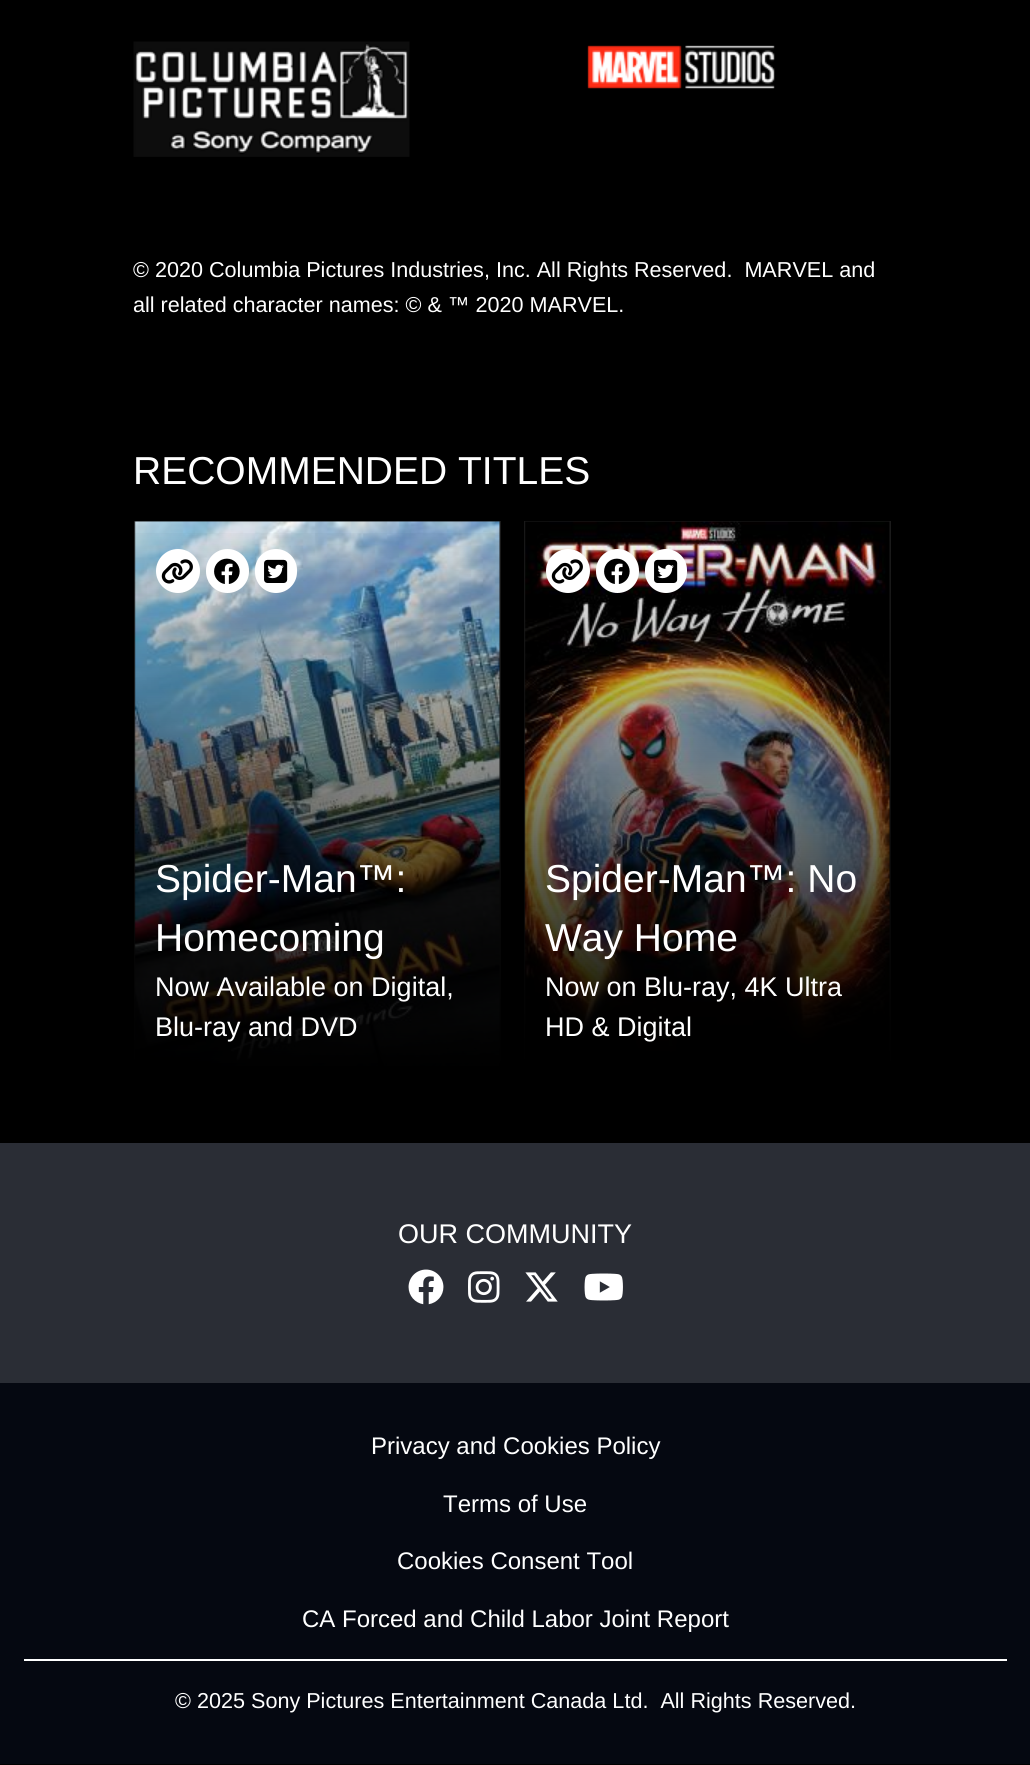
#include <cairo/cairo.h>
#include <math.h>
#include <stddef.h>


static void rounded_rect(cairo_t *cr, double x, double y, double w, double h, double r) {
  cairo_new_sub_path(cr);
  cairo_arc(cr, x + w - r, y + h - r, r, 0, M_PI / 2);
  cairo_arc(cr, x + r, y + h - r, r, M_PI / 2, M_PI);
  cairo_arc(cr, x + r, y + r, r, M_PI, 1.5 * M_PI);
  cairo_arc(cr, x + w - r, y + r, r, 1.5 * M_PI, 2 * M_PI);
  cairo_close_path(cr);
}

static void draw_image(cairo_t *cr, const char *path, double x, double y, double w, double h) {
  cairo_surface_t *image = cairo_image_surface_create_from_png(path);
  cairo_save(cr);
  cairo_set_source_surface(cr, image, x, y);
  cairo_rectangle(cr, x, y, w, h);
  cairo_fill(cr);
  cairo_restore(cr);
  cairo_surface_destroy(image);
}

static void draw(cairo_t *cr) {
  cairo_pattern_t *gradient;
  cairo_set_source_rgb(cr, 0, 0, 0);
  cairo_paint(cr);
  draw_image(cr, "images/1.png", 133, 41, 277, 116);
  draw_image(cr, "images/2.png", 587, 45, 188, 44);
  cairo_rectangle(cr, 135, 522, 365, 548);
  cairo_set_source_rgb(cr, 27 / 255.0, 27 / 255.0, 27 / 255.0);
  cairo_stroke(cr);
  draw_image(cr, "images/6.png", 134, 521, 366, 547);
  gradient = cairo_pattern_create_linear(317, 521, 317, 1071);
  cairo_pattern_add_color_stop_rgba(gradient, 0, 0, 0, 0, 0);
  cairo_pattern_add_color_stop_rgba(gradient, 1, 0, 0, 0, 1);
  cairo_set_source(cr, gradient);
  cairo_pattern_destroy(gradient);
  cairo_rectangle(cr, 134, 533, 367, 538);
  cairo_fill(cr);
  cairo_set_source_rgb(cr, 1, 1, 1);
  cairo_arc(cr, 178, 571, 22, 0, 2 * M_PI);
  cairo_fill(cr);
  draw_image(cr, "images/3.png", 161, 559, 32, 25);
  rounded_rect(cr, 206, 549, 43, 44, 21.5);
  cairo_fill(cr);
  draw_image(cr, "images/4.png", 214, 558, 26, 26);
  rounded_rect(cr, 255, 549, 42, 44, 21);
  cairo_fill(cr);
  draw_image(cr, "images/5.png", 264, 559, 24, 24);
  cairo_rectangle(cr, 525, 522, 365, 548);
  cairo_set_source_rgb(cr, 27 / 255.0, 27 / 255.0, 27 / 255.0);
  cairo_stroke(cr);
  draw_image(cr, "images/7.png", 524, 521, 366, 547);
  gradient = cairo_pattern_create_linear(707, 521, 707, 1071);
  cairo_pattern_add_color_stop_rgba(gradient, 0, 0, 0, 0, 0);
  cairo_pattern_add_color_stop_rgba(gradient, 1, 0, 0, 0, 1);
  cairo_set_source(cr, gradient);
  cairo_pattern_destroy(gradient);
  cairo_rectangle(cr, 524, 533, 367, 538);
  cairo_fill(cr);
  cairo_set_source_rgb(cr, 1, 1, 1);
  cairo_arc(cr, 568, 571, 22, 0, 2 * M_PI);
  cairo_fill(cr);
  draw_image(cr, "images/3.png", 551, 559, 32, 25);
  rounded_rect(cr, 596, 549, 43, 44, 21.5);
  cairo_fill(cr);
  draw_image(cr, "images/4.png", 604, 558, 26, 26);
  rounded_rect(cr, 645, 549, 42, 44, 21);
  cairo_fill(cr);
  draw_image(cr, "images/5.png", 654, 559, 24, 24);
  cairo_set_source_rgb(cr, 42 / 255.0, 45 / 255.0, 53 / 255.0);
  cairo_rectangle(cr, 0, 1143, 1030, 240);
  cairo_fill(cr);
  draw_image(cr, "images/8.png", 408, 1269, 36, 36);
  draw_image(cr, "images/9.png", 468, 1271, 32, 32);
  draw_image(cr, "images/10.png", 525, 1272, 33, 30);
  draw_image(cr, "images/11.png", 584, 1273, 39, 28);
  cairo_set_source_rgb(cr, 5 / 255.0, 8 / 255.0, 17 / 255.0);
  cairo_rectangle(cr, 0, 1383, 1030, 381);
  cairo_fill(cr);
  cairo_set_source_rgb(cr, 1, 1, 1);
  cairo_rectangle(cr, 24, 1659, 983, 2);
  cairo_fill(cr);
  cairo_select_font_face(cr, "Liberation Sans", CAIRO_FONT_SLANT_NORMAL, CAIRO_FONT_WEIGHT_NORMAL);
  cairo_set_font_size(cr, 21.6);
  cairo_move_to(cr, 133, 277);
  cairo_show_text(cr, "© 2020 Columbia Pictures Industries, Inc. All Rights Reserved.  MARVEL and");
  cairo_move_to(cr, 133, 312);
  cairo_show_text(cr, "all related character names: © & ™ 2020 MARVEL.");
  cairo_set_font_size(cr, 39);
  cairo_move_to(cr, 133, 484);
  cairo_show_text(cr, "RECOMMENDED TITLES");
  cairo_move_to(cr, 155, 892);
  cairo_show_text(cr, "Spider-Man™:");
  cairo_move_to(cr, 155, 951);
  cairo_show_text(cr, "Homecoming");
  cairo_set_font_size(cr, 27);
  cairo_move_to(cr, 155, 996);
  cairo_show_text(cr, "Now Available on Digital,");
  cairo_move_to(cr, 155, 1036);
  cairo_show_text(cr, "Blu-ray and DVD");
  cairo_set_font_size(cr, 39);
  cairo_move_to(cr, 545, 892);
  cairo_show_text(cr, "Spider-Man™: No");
  cairo_move_to(cr, 545, 951);
  cairo_show_text(cr, "Way Home");
  cairo_set_font_size(cr, 27);
  cairo_move_to(cr, 545, 996);
  cairo_show_text(cr, "Now on Blu-ray, 4K Ultra");
  cairo_move_to(cr, 545, 1036);
  cairo_show_text(cr, "HD & Digital");
  cairo_move_to(cr, 398, 1243);
  cairo_show_text(cr, "OUR COMMUNITY");
  cairo_set_font_size(cr, 24);
  cairo_move_to(cr, 371, 1454);
  cairo_show_text(cr, "Privacy and Cookies Policy");
  cairo_move_to(cr, 443, 1512);
  cairo_show_text(cr, "Terms of Use");
  cairo_move_to(cr, 397, 1569);
  cairo_show_text(cr, "Cookies Consent Tool");
  cairo_move_to(cr, 302, 1627);
  cairo_show_text(cr, "CA Forced and Child Labor Joint Report");
  cairo_set_font_size(cr, 21.6);
  cairo_move_to(cr, 175, 1708);
  cairo_show_text(cr, "© 2025 Sony Pictures Entertainment Canada Ltd.  All Rights Reserved.");
}

int main(void) {
  cairo_surface_t *surface = cairo_image_surface_create(CAIRO_FORMAT_RGB24, 1030, 1765);
  cairo_t *cr = cairo_create(surface);
  cairo_font_options_t *options = cairo_font_options_create();
  cairo_font_options_set_hint_metrics(options, CAIRO_HINT_METRICS_OFF);
  cairo_font_options_set_hint_style(options, CAIRO_HINT_STYLE_NONE);
  cairo_set_font_options(cr, options);
  cairo_set_miter_limit(cr, 4);
  draw(cr);
  cairo_surface_write_to_png(surface, "out.png");
  cairo_font_options_destroy(options);
  cairo_destroy(cr);
  cairo_surface_destroy(surface);
  return 0;
}
